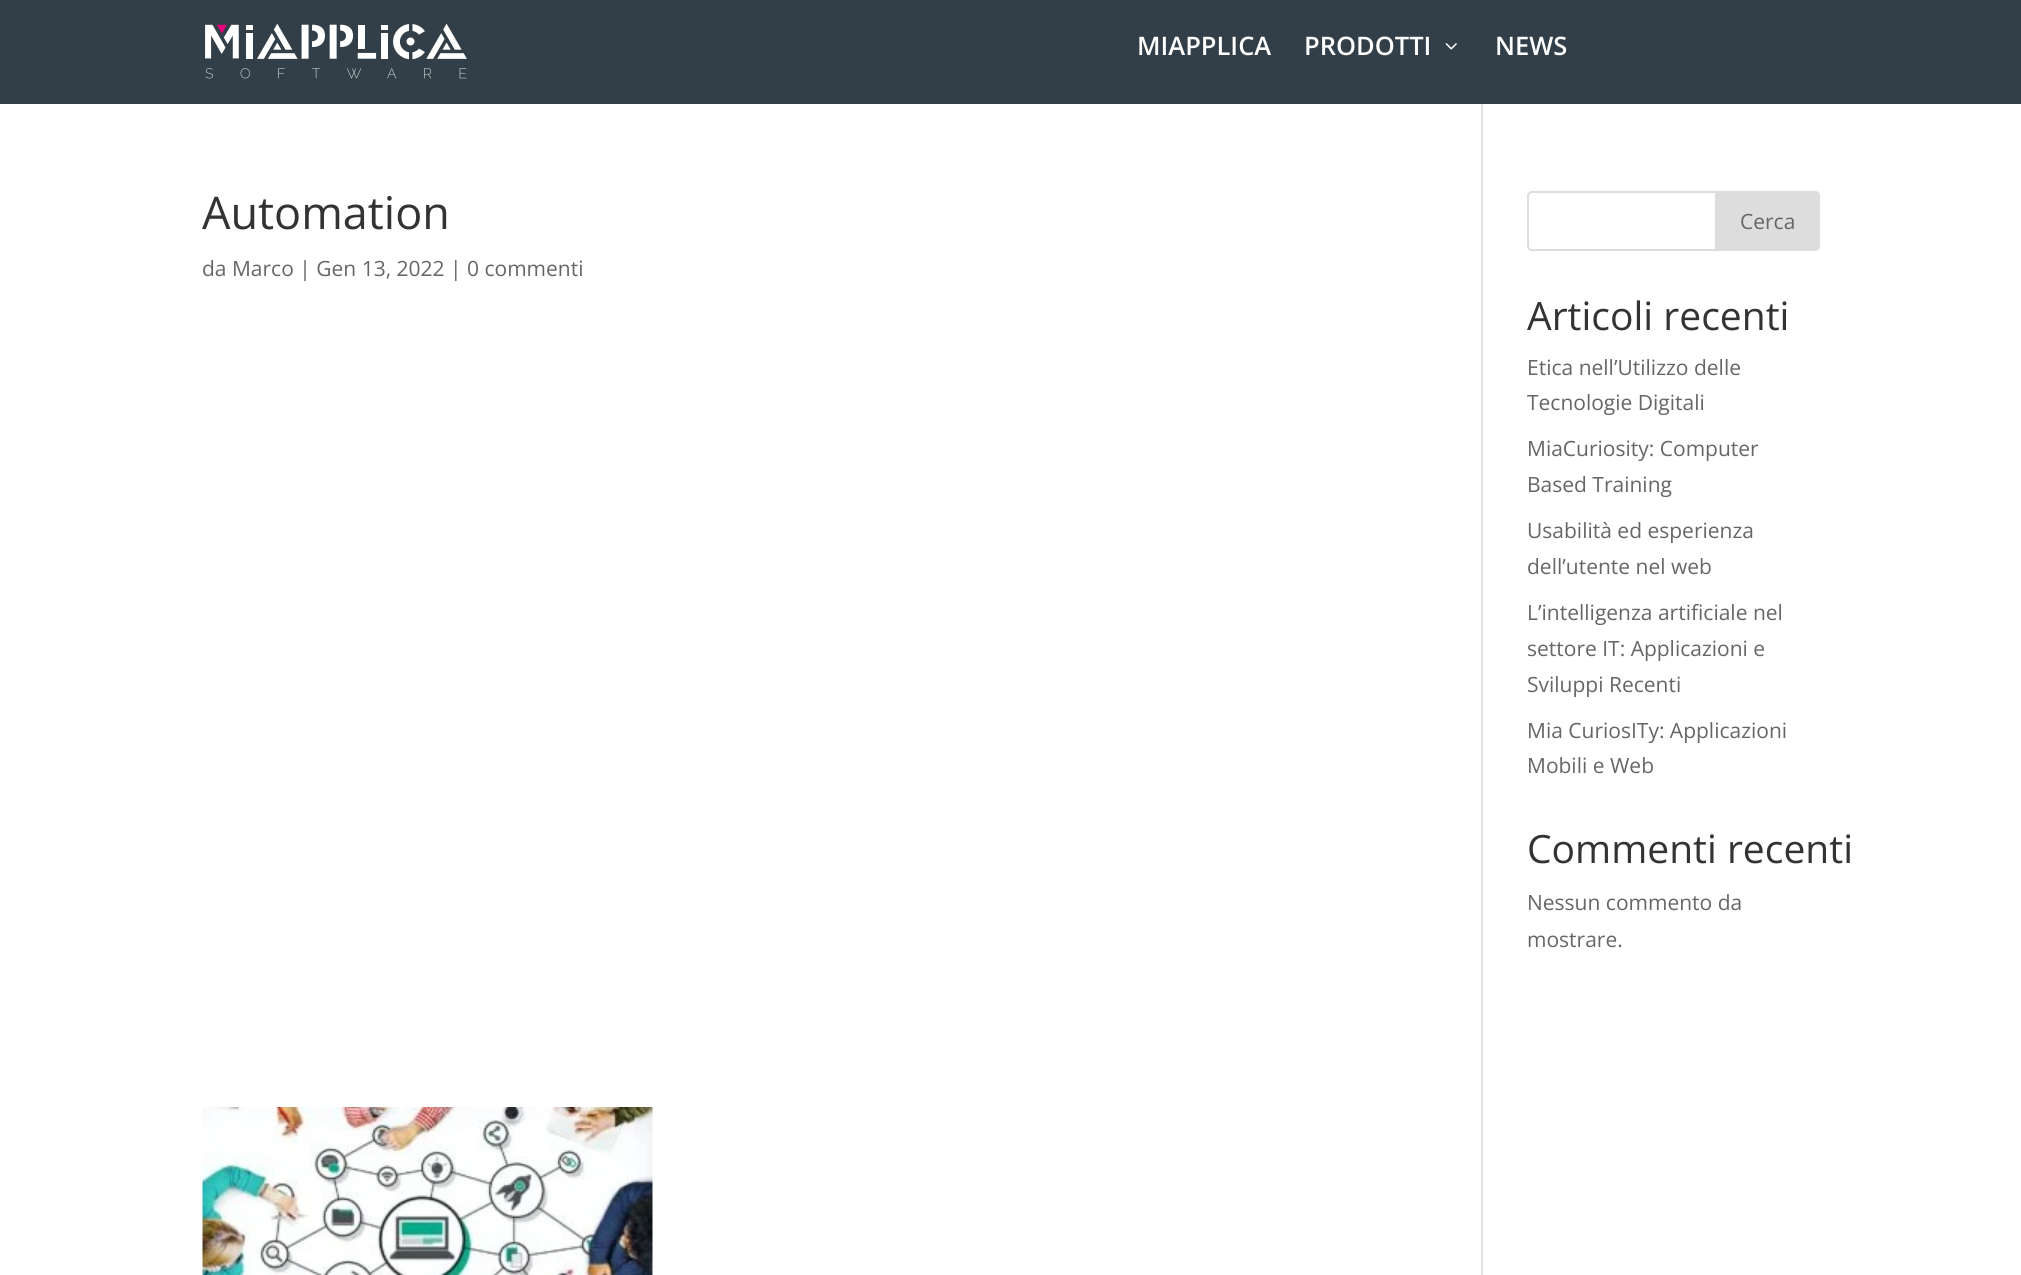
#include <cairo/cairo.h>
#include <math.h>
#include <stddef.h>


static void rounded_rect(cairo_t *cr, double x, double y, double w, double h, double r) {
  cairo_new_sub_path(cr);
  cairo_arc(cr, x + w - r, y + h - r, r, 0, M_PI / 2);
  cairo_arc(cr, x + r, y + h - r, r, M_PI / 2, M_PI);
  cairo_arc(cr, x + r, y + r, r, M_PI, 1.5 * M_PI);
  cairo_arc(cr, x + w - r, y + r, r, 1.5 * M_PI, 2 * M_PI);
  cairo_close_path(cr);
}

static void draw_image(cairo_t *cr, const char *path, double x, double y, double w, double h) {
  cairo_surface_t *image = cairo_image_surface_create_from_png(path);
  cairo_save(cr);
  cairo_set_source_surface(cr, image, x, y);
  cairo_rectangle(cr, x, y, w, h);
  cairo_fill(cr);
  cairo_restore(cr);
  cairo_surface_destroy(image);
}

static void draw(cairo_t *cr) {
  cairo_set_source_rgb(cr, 1, 1, 1);
  cairo_paint(cr);
  cairo_set_source_rgb(cr, 50 / 255.0, 63 / 255.0, 72 / 255.0);
  cairo_rectangle(cr, 0, 0, 2021, 104);
  cairo_fill(cr);
  draw_image(cr, "images/1.png", 205, 23, 262, 56);
  draw_image(cr, "images/2.png", 1445, 43, 12, 7);
  cairo_set_source_rgb(cr, 226 / 255.0, 226 / 255.0, 226 / 255.0);
  cairo_rectangle(cr, 1481, 104, 2, 1171);
  cairo_fill(cr);
  draw_image(cr, "images/3.png", 202, 1107, 451, 168);
  rounded_rect(cr, 1528, 192, 291, 58, 4);
  cairo_set_source_rgb(cr, 221 / 255.0, 221 / 255.0, 221 / 255.0);
  cairo_stroke(cr);
  cairo_new_path(cr);
  cairo_move_to(cr, 1716, 192);
  cairo_line_to(cr, 1815, 192);
  cairo_curve_to(cr, 1817, 192, 1819, 194, 1819, 196);
  cairo_line_to(cr, 1819, 246);
  cairo_curve_to(cr, 1819, 248, 1817, 250, 1815, 250);
  cairo_line_to(cr, 1716, 250);
  cairo_close_path(cr);
  cairo_fill_preserve(cr);
  cairo_stroke(cr);
  cairo_select_font_face(cr, "Open Sans SemiBold", CAIRO_FONT_SLANT_NORMAL, CAIRO_FONT_WEIGHT_NORMAL);
  cairo_set_font_size(cr, 25.5);
  cairo_set_source_rgb(cr, 1, 1, 1);
  cairo_move_to(cr, 1137, 55);
  cairo_show_text(cr, "MIAPPLICA");
  cairo_move_to(cr, 1304, 55);
  cairo_show_text(cr, "PRODOTTI");
  cairo_move_to(cr, 1495, 55);
  cairo_show_text(cr, "NEWS");
  cairo_select_font_face(cr, "Open Sans", CAIRO_FONT_SLANT_NORMAL, CAIRO_FONT_WEIGHT_NORMAL);
  cairo_set_font_size(cr, 45);
  cairo_set_source_rgb(cr, 51 / 255.0, 51 / 255.0, 51 / 255.0);
  cairo_move_to(cr, 202, 229);
  cairo_show_text(cr, "Automation");
  cairo_set_font_size(cr, 21);
  cairo_set_source_rgb(cr, 102 / 255.0, 102 / 255.0, 102 / 255.0);
  cairo_move_to(cr, 202, 276);
  cairo_show_text(cr, "da Marco | Gen 13, 2022 | 0 commenti");
  cairo_move_to(cr, 1740, 229);
  cairo_show_text(cr, "Cerca");
  cairo_set_font_size(cr, 39);
  cairo_set_source_rgb(cr, 51 / 255.0, 51 / 255.0, 51 / 255.0);
  cairo_move_to(cr, 1527, 330);
  cairo_show_text(cr, "Articoli recenti");
  cairo_set_font_size(cr, 21);
  cairo_set_source_rgb(cr, 102 / 255.0, 102 / 255.0, 102 / 255.0);
  cairo_move_to(cr, 1527, 375);
  cairo_show_text(cr, "Etica nell’Utilizzo delle");
  cairo_move_to(cr, 1527, 410);
  cairo_show_text(cr, "Tecnologie Digitali");
  cairo_move_to(cr, 1527, 456);
  cairo_show_text(cr, "MiaCuriosity: Computer");
  cairo_move_to(cr, 1527, 492);
  cairo_show_text(cr, "Based Training");
  cairo_move_to(cr, 1527, 538);
  cairo_show_text(cr, "Usabilità ed esperienza");
  cairo_move_to(cr, 1527, 574);
  cairo_show_text(cr, "dell’utente nel web");
  cairo_move_to(cr, 1527, 620);
  cairo_show_text(cr, "L’intelligenza artificiale nel");
  cairo_move_to(cr, 1527, 656);
  cairo_show_text(cr, "settore IT: Applicazioni e");
  cairo_move_to(cr, 1527, 692);
  cairo_show_text(cr, "Sviluppi Recenti");
  cairo_move_to(cr, 1527, 738);
  cairo_show_text(cr, "Mia CuriosITy: Applicazioni");
  cairo_move_to(cr, 1527, 773);
  cairo_show_text(cr, "Mobili e Web");
  cairo_set_font_size(cr, 39);
  cairo_set_source_rgb(cr, 51 / 255.0, 51 / 255.0, 51 / 255.0);
  cairo_move_to(cr, 1527, 863);
  cairo_show_text(cr, "Commenti recenti");
  cairo_set_font_size(cr, 21);
  cairo_set_source_rgb(cr, 102 / 255.0, 102 / 255.0, 102 / 255.0);
  cairo_move_to(cr, 1527, 910);
  cairo_show_text(cr, "Nessun commento da");
  cairo_move_to(cr, 1527, 947);
  cairo_show_text(cr, "mostrare.");
}

int main(void) {
  cairo_surface_t *surface = cairo_image_surface_create(CAIRO_FORMAT_RGB24, 2021, 1275);
  cairo_t *cr = cairo_create(surface);
  cairo_font_options_t *options = cairo_font_options_create();
  cairo_font_options_set_hint_metrics(options, CAIRO_HINT_METRICS_OFF);
  cairo_font_options_set_hint_style(options, CAIRO_HINT_STYLE_NONE);
  cairo_set_font_options(cr, options);
  cairo_set_miter_limit(cr, 4);
  draw(cr);
  cairo_surface_write_to_png(surface, "out.png");
  cairo_font_options_destroy(options);
  cairo_destroy(cr);
  cairo_surface_destroy(surface);
  return 0;
}
